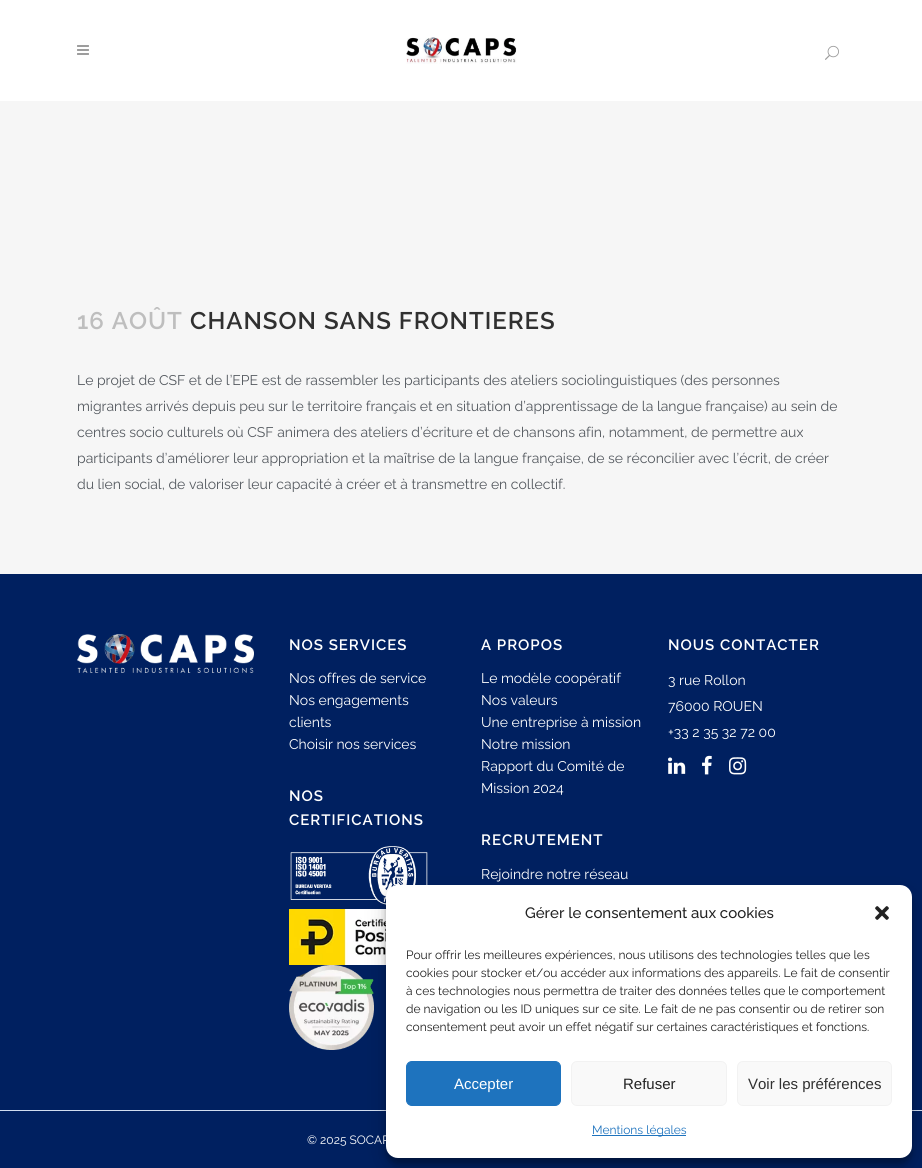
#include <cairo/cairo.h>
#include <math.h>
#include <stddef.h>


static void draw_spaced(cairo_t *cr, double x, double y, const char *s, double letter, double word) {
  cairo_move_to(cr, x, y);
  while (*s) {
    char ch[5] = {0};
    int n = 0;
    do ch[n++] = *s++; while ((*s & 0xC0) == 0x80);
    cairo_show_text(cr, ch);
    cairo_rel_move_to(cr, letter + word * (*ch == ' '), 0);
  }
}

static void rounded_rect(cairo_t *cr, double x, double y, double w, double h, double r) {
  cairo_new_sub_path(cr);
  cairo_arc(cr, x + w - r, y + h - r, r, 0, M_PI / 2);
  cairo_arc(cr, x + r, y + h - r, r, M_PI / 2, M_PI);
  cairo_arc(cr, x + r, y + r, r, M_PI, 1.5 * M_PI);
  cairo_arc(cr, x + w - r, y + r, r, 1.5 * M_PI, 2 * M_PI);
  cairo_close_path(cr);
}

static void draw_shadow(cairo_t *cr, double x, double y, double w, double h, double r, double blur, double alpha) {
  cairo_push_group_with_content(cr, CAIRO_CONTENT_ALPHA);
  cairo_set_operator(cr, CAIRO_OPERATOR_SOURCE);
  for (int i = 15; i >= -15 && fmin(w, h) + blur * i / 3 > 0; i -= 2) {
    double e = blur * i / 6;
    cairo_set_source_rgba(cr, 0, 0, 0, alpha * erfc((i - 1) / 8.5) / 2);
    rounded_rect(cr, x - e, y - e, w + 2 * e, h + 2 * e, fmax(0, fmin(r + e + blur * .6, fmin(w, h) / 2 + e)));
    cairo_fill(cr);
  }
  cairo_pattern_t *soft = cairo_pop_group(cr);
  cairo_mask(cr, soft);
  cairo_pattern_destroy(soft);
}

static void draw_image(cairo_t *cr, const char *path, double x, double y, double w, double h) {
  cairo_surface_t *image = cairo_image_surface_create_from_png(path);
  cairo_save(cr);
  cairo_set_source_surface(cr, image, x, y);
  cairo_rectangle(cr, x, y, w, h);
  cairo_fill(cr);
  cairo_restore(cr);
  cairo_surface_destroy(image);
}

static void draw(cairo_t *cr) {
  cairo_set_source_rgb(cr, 246 / 255.0, 246 / 255.0, 246 / 255.0);
  cairo_paint(cr);
  cairo_set_source_rgb(cr, 1, 1, 1);
  cairo_rectangle(cr, 0, 0, 922, 101);
  cairo_fill(cr);
  draw_image(cr, "images/1.png", 77, 45, 12, 10);
  draw_image(cr, "images/2.png", 406, 37, 111, 27);
  draw_image(cr, "images/3.png", 825, 45, 14, 15);
  cairo_set_source_rgb(cr, 0, 32 / 255.0, 96 / 255.0);
  cairo_rectangle(cr, 0, 574, 922, 536);
  cairo_fill(cr);
  draw_image(cr, "images/4.png", 77, 634, 177, 39);
  draw_image(cr, "images/5.png", 290, 846, 138, 59);
  draw_image(cr, "images/6.png", 289, 909, 97, 56);
  draw_image(cr, "images/7.png", 289, 965, 85, 85);
  draw_image(cr, "images/8.png", 668, 757, 18, 17);
  draw_image(cr, "images/9.png", 702, 755, 10, 20);
  draw_image(cr, "images/10.png", 729, 757, 18, 18);
  cairo_rectangle(cr, 0, 1111, 922, 57);
  cairo_fill(cr);
  cairo_set_source_rgb(cr, 209 / 255.0, 221 / 255.0, 240 / 255.0);
  cairo_rectangle(cr, 0, 1110, 922, 1);
  cairo_fill(cr);
  cairo_set_source_rgb(cr, 0, 0, 0);
  draw_shadow(cr, 386, 891, 526, 273, 12, 3, 0.23);
  draw_shadow(cr, 386, 895, 526, 273, 12, 10, 0.19);
  cairo_set_source_rgb(cr, 1, 1, 1);
  rounded_rect(cr, 386, 885, 526, 273, 12);
  cairo_fill(cr);
  draw_image(cr, "images/11.png", 875, 906, 14, 14);
  cairo_set_source_rgb(cr, 30 / 255.0, 115 / 255.0, 190 / 255.0);
  rounded_rect(cr, 406.5, 1061.5, 154, 44, 5.5);
  cairo_fill_preserve(cr);
  cairo_set_line_width(cr, 1);
  cairo_stroke(cr);
  cairo_set_source_rgb(cr, 249 / 255.0, 249 / 255.0, 249 / 255.0);
  rounded_rect(cr, 571.5, 1061.5, 155, 44, 5.5);
  cairo_fill_preserve(cr);
  cairo_set_source_rgb(cr, 242 / 255.0, 242 / 255.0, 242 / 255.0);
  cairo_stroke(cr);
  cairo_set_source_rgb(cr, 249 / 255.0, 249 / 255.0, 249 / 255.0);
  rounded_rect(cr, 737.5, 1061.5, 154, 44, 5.5);
  cairo_fill_preserve(cr);
  cairo_set_source_rgb(cr, 242 / 255.0, 242 / 255.0, 242 / 255.0);
  cairo_stroke(cr);
  cairo_set_source_rgb(cr, 30 / 255.0, 115 / 255.0, 190 / 255.0);
  cairo_rectangle(cr, 592, 1135, 94, 1);
  cairo_fill(cr);
  cairo_select_font_face(cr, "Raleway SemiBold", CAIRO_FONT_SLANT_NORMAL, CAIRO_FONT_WEIGHT_NORMAL);
  cairo_set_font_size(cr, 24);
  cairo_set_source_rgb(cr, 190 / 255.0, 190 / 255.0, 190 / 255.0);
  draw_spaced(cr, 77, 329, "16 AOÛT", 1, 0);
  cairo_set_source_rgb(cr, 48 / 255.0, 48 / 255.0, 48 / 255.0);
  draw_spaced(cr, 190, 329, "CHANSON SANS FRONTIERES", 1, 0);
  cairo_select_font_face(cr, "Raleway", CAIRO_FONT_SLANT_NORMAL, CAIRO_FONT_WEIGHT_NORMAL);
  cairo_set_font_size(cr, 14);
  cairo_set_source_rgb(cr, 84 / 255.0, 89 / 255.0, 95 / 255.0);
  cairo_move_to(cr, 77, 385);
  cairo_show_text(cr, "Le projet de CSF et de l’EPE est de rassembler les participants des ateliers sociolinguistiques (des personnes");
  cairo_move_to(cr, 77, 411);
  cairo_show_text(cr, "migrantes arrivés depuis peu sur le territoire français et en situation d’apprentissage de la langue française) au sein de");
  cairo_move_to(cr, 77, 437);
  cairo_show_text(cr, "centres socio culturels où CSF animera des ateliers d’écriture et de chansons afin, notamment, de permettre aux");
  cairo_move_to(cr, 77, 463);
  cairo_show_text(cr, "participants d’améliorer leur appropriation et la maîtrise de la langue française, de se réconcilier avec l’écrit, de créer");
  cairo_move_to(cr, 77, 489);
  cairo_show_text(cr, "du lien social, de valoriser leur capacité à créer et à transmettre en collectif.");
  cairo_select_font_face(cr, "Raleway SemiBold", CAIRO_FONT_SLANT_NORMAL, CAIRO_FONT_WEIGHT_NORMAL);
  cairo_set_font_size(cr, 15);
  cairo_set_source_rgb(cr, 1, 1, 1);
  draw_spaced(cr, 289, 650, "NOS SERVICES", 1, 0);
  cairo_select_font_face(cr, "Raleway", CAIRO_FONT_SLANT_NORMAL, CAIRO_FONT_WEIGHT_NORMAL);
  cairo_set_font_size(cr, 14);
  cairo_move_to(cr, 289, 683);
  cairo_show_text(cr, "Nos offres de service");
  cairo_move_to(cr, 289, 705);
  cairo_show_text(cr, "Nos engagements");
  cairo_move_to(cr, 289, 727);
  cairo_show_text(cr, "clients");
  cairo_move_to(cr, 289, 749);
  cairo_show_text(cr, "Choisir nos services");
  cairo_select_font_face(cr, "Raleway SemiBold", CAIRO_FONT_SLANT_NORMAL, CAIRO_FONT_WEIGHT_NORMAL);
  cairo_set_font_size(cr, 15);
  draw_spaced(cr, 289, 801, "NOS", 1, 0);
  draw_spaced(cr, 289, 825, "CERTIFICATIONS", 1, 0);
  draw_spaced(cr, 481, 650, "A PROPOS", 1, 0);
  cairo_select_font_face(cr, "Raleway", CAIRO_FONT_SLANT_NORMAL, CAIRO_FONT_WEIGHT_NORMAL);
  cairo_set_font_size(cr, 14);
  cairo_move_to(cr, 481, 683);
  cairo_show_text(cr, "Le modèle coopératif");
  cairo_move_to(cr, 481, 705);
  cairo_show_text(cr, "Nos valeurs");
  cairo_move_to(cr, 481, 727);
  cairo_show_text(cr, "Une entreprise à mission");
  cairo_move_to(cr, 481, 749);
  cairo_show_text(cr, "Notre mission");
  cairo_move_to(cr, 481, 771);
  cairo_show_text(cr, "Rapport du Comité de");
  cairo_move_to(cr, 481, 793);
  cairo_show_text(cr, "Mission 2024");
  cairo_select_font_face(cr, "Raleway SemiBold", CAIRO_FONT_SLANT_NORMAL, CAIRO_FONT_WEIGHT_NORMAL);
  cairo_set_font_size(cr, 15);
  draw_spaced(cr, 481, 845, "RECRUTEMENT", 1, 0);
  cairo_select_font_face(cr, "Raleway", CAIRO_FONT_SLANT_NORMAL, CAIRO_FONT_WEIGHT_NORMAL);
  cairo_set_font_size(cr, 14);
  cairo_move_to(cr, 481, 879);
  cairo_show_text(cr, "Rejoindre notre réseau");
  cairo_select_font_face(cr, "Raleway SemiBold", CAIRO_FONT_SLANT_NORMAL, CAIRO_FONT_WEIGHT_NORMAL);
  cairo_set_font_size(cr, 15);
  draw_spaced(cr, 668, 650, "NOUS CONTACTER", 1, 0);
  cairo_select_font_face(cr, "Raleway", CAIRO_FONT_SLANT_NORMAL, CAIRO_FONT_WEIGHT_NORMAL);
  cairo_set_font_size(cr, 14);
  cairo_move_to(cr, 668, 685);
  cairo_show_text(cr, "3 rue Rollon");
  cairo_move_to(cr, 668, 711);
  cairo_show_text(cr, "76000 ROUEN");
  cairo_move_to(cr, 668, 737);
  cairo_show_text(cr, "+33 2 35 32 72 00");
  cairo_set_font_size(cr, 12);
  cairo_move_to(cr, 307, 1144);
  cairo_show_text(cr, "© 2025 SOCAP");
  cairo_select_font_face(cr, "Raleway Medium", CAIRO_FONT_SLANT_NORMAL, CAIRO_FONT_WEIGHT_NORMAL);
  cairo_set_font_size(cr, 15);
  cairo_set_source_rgb(cr, 34 / 255.0, 34 / 255.0, 34 / 255.0);
  cairo_move_to(cr, 525, 918);
  cairo_show_text(cr, "Gérer le consentement aux cookies");
  cairo_select_font_face(cr, "Raleway", CAIRO_FONT_SLANT_NORMAL, CAIRO_FONT_WEIGHT_NORMAL);
  cairo_set_font_size(cr, 12);
  cairo_move_to(cr, 406, 959);
  cairo_show_text(cr, "Pour offrir les meilleures expériences, nous utilisons des technologies telles que les");
  cairo_move_to(cr, 406, 977);
  cairo_show_text(cr, "cookies pour stocker et/ou accéder aux informations des appareils. Le fait de consentir");
  cairo_move_to(cr, 406, 995);
  cairo_show_text(cr, "à ces technologies nous permettra de traiter des données telles que le comportement");
  cairo_move_to(cr, 406, 1013);
  cairo_show_text(cr, "de navigation ou les ID uniques sur ce site. Le fait de ne pas consentir ou de retirer son");
  cairo_move_to(cr, 406, 1031);
  cairo_show_text(cr, "consentement peut avoir un effet négatif sur certaines caractéristiques et fonctions.");
  cairo_select_font_face(cr, "Liberation Sans", CAIRO_FONT_SLANT_NORMAL, CAIRO_FONT_WEIGHT_NORMAL);
  cairo_set_font_size(cr, 15);
  cairo_set_source_rgb(cr, 1, 1, 1);
  cairo_move_to(cr, 454, 1089);
  cairo_show_text(cr, "Accepter");
  cairo_set_source_rgb(cr, 34 / 255.0, 34 / 255.0, 34 / 255.0);
  cairo_move_to(cr, 623, 1089);
  cairo_show_text(cr, "Refuser");
  cairo_set_source_rgb(cr, 48 / 255.0, 48 / 255.0, 48 / 255.0);
  cairo_move_to(cr, 748, 1089);
  cairo_show_text(cr, "Voir les préférences");
  cairo_select_font_face(cr, "Raleway", CAIRO_FONT_SLANT_NORMAL, CAIRO_FONT_WEIGHT_NORMAL);
  cairo_set_font_size(cr, 12);
  cairo_set_source_rgb(cr, 30 / 255.0, 115 / 255.0, 190 / 255.0);
  cairo_move_to(cr, 592, 1134);
  cairo_show_text(cr, "Mentions légales");
}

int main(void) {
  cairo_surface_t *surface = cairo_image_surface_create(CAIRO_FORMAT_RGB24, 922, 1168);
  cairo_t *cr = cairo_create(surface);
  cairo_font_options_t *options = cairo_font_options_create();
  cairo_font_options_set_hint_metrics(options, CAIRO_HINT_METRICS_OFF);
  cairo_font_options_set_hint_style(options, CAIRO_HINT_STYLE_NONE);
  cairo_set_font_options(cr, options);
  cairo_set_miter_limit(cr, 4);
  draw(cr);
  cairo_surface_write_to_png(surface, "out.png");
  cairo_font_options_destroy(options);
  cairo_destroy(cr);
  cairo_surface_destroy(surface);
  return 0;
}
